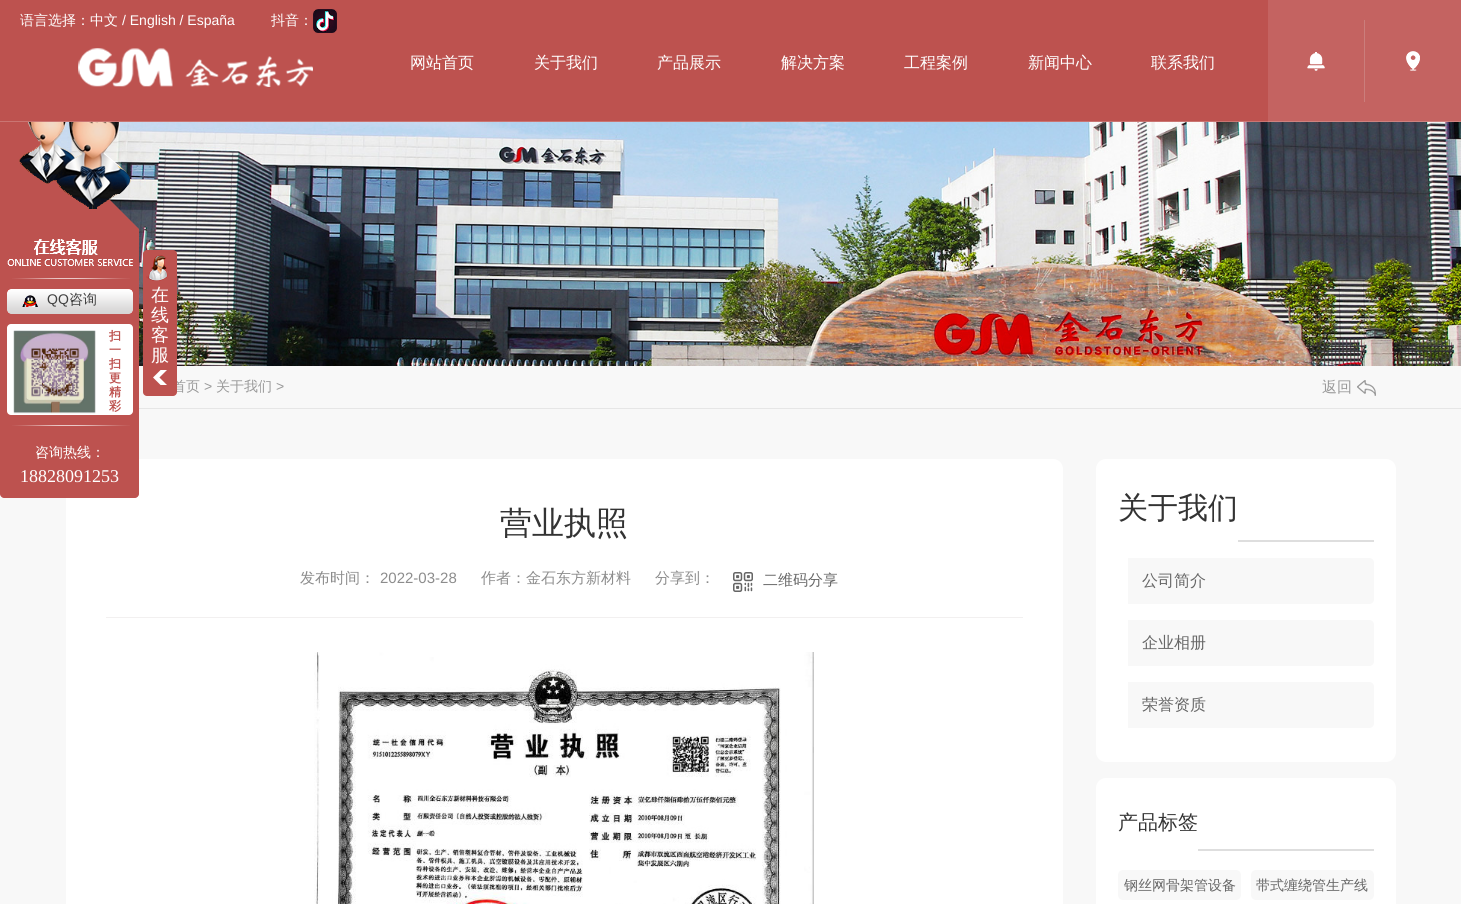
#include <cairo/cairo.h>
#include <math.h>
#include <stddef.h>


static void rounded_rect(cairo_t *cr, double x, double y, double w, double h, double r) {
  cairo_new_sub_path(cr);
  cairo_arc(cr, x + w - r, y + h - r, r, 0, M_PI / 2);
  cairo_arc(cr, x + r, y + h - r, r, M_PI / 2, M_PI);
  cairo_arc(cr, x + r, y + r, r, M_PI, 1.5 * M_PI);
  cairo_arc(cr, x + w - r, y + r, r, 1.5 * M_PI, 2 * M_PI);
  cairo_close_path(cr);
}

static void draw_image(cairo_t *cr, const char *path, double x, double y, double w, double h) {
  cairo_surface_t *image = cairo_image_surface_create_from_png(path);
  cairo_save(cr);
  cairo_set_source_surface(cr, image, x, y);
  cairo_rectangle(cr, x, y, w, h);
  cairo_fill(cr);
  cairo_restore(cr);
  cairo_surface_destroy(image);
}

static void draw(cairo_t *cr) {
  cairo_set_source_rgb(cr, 248 / 255.0, 248 / 255.0, 248 / 255.0);
  cairo_paint(cr);
  draw_image(cr, "images/5.png", 54, 122, 1407, 244);
  cairo_set_source_rgb(cr, 189 / 255.0, 82 / 255.0, 79 / 255.0);
  cairo_new_path(cr);
  cairo_move_to(cr, 0, 90);
  cairo_line_to(cr, 139, 229);
  cairo_line_to(cr, 0, 229);
  cairo_close_path(cr);
  cairo_fill(cr);
  cairo_rectangle(cr, 0, 0, 1268, 121);
  cairo_fill(cr);
  cairo_set_source_rgb(cr, 196 / 255.0, 99 / 255.0, 97 / 255.0);
  cairo_rectangle(cr, 1268, 0, 193, 121);
  cairo_fill(cr);
  draw_image(cr, "images/1.png", 313, 9, 24, 24);
  draw_image(cr, "images/2.png", 78, 48, 235, 39);
  draw_image(cr, "images/3.png", 1307, 52, 18, 19);
  draw_image(cr, "images/4.png", 1406, 51, 14, 20);
  cairo_set_source_rgb(cr, 203 / 255.0, 126 / 255.0, 124 / 255.0);
  cairo_rectangle(cr, 1364, 20, 1, 82);
  cairo_fill(cr);
  cairo_set_source_rgb(cr, 202 / 255.0, 117 / 255.0, 114 / 255.0);
  cairo_rectangle(cr, 0, 121, 1268, 1);
  cairo_fill(cr);
  cairo_set_source_rgb(cr, 207 / 255.0, 131 / 255.0, 128 / 255.0);
  cairo_rectangle(cr, 1268, 121, 193, 1);
  cairo_fill(cr);
  draw_image(cr, "images/6.png", 19, 122, 112, 87);
  cairo_set_source_rgb(cr, 1, 1, 1);
  rounded_rect(cr, 66, 459, 997, 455, 10);
  cairo_fill(cr);
  cairo_set_source_rgb(cr, 189 / 255.0, 82 / 255.0, 79 / 255.0);
  cairo_new_path(cr);
  cairo_move_to(cr, 0, 229);
  cairo_line_to(cr, 139, 229);
  cairo_line_to(cr, 139, 494);
  cairo_curve_to(cr, 139, 496, 137, 498, 135, 498);
  cairo_line_to(cr, 4, 498);
  cairo_curve_to(cr, 2, 498, 0, 496, 0, 494);
  cairo_close_path(cr);
  cairo_fill(cr);
  draw_image(cr, "images/7.png", 7, 239, 126, 27);
  draw_image(cr, "images/8.png", 12, 278, 118, 1);
  draw_image(cr, "images/9.png", 7, 289, 126, 25);
  draw_image(cr, "images/10.png", 22, 295, 16, 12);
  cairo_set_source_rgb(cr, 1, 1, 1);
  rounded_rect(cr, 7, 324, 126, 91, 4);
  cairo_fill(cr);
  draw_image(cr, "images/11.png", 13, 330, 83, 84);
  draw_image(cr, "images/8.png", 12, 425, 118, 1);
  cairo_set_source_rgb(cr, 230 / 255.0, 230 / 255.0, 230 / 255.0);
  cairo_rectangle(cr, 139, 408, 1322, 1);
  cairo_fill(cr);
  draw_image(cr, "images/14.png", 1357, 380, 19, 16);
  cairo_set_source_rgb(cr, 242 / 255.0, 240 / 255.0, 240 / 255.0);
  cairo_rectangle(cr, 106, 617, 917, 1);
  cairo_fill(cr);
  draw_image(cr, "images/15.png", 733, 572, 20, 20);
  draw_image(cr, "images/16.png", 314, 652, 500, 252);
  cairo_set_source_rgb(cr, 1, 1, 1);
  rounded_rect(cr, 1096, 459, 300, 303, 10);
  cairo_fill(cr);
  cairo_set_source_rgb(cr, 222 / 255.0, 222 / 255.0, 222 / 255.0);
  cairo_rectangle(cr, 1238, 540, 136, 2);
  cairo_fill(cr);
  cairo_set_source_rgb(cr, 248 / 255.0, 248 / 255.0, 248 / 255.0);
  cairo_new_path(cr);
  cairo_move_to(cr, 1128, 558);
  cairo_line_to(cr, 1369, 558);
  cairo_curve_to(cr, 1372, 558, 1374, 560, 1374, 563);
  cairo_line_to(cr, 1374, 599);
  cairo_curve_to(cr, 1374, 602, 1372, 604, 1369, 604);
  cairo_line_to(cr, 1128, 604);
  cairo_close_path(cr);
  cairo_fill(cr);
  cairo_new_path(cr);
  cairo_move_to(cr, 1128, 620);
  cairo_line_to(cr, 1369, 620);
  cairo_curve_to(cr, 1372, 620, 1374, 622, 1374, 625);
  cairo_line_to(cr, 1374, 661);
  cairo_curve_to(cr, 1374, 664, 1372, 666, 1369, 666);
  cairo_line_to(cr, 1128, 666);
  cairo_close_path(cr);
  cairo_fill(cr);
  cairo_new_path(cr);
  cairo_move_to(cr, 1128, 682);
  cairo_line_to(cr, 1369, 682);
  cairo_curve_to(cr, 1372, 682, 1374, 684, 1374, 687);
  cairo_line_to(cr, 1374, 723);
  cairo_curve_to(cr, 1374, 726, 1372, 728, 1369, 728);
  cairo_line_to(cr, 1128, 728);
  cairo_close_path(cr);
  cairo_fill(cr);
  cairo_set_source_rgb(cr, 1, 1, 1);
  rounded_rect(cr, 1096, 778, 300, 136, 10);
  cairo_fill(cr);
  cairo_set_source_rgb(cr, 222 / 255.0, 222 / 255.0, 222 / 255.0);
  cairo_rectangle(cr, 1198, 849, 176, 2);
  cairo_fill(cr);
  cairo_set_source_rgb(cr, 248 / 255.0, 248 / 255.0, 248 / 255.0);
  rounded_rect(cr, 1118, 870, 123, 30, 5);
  cairo_fill(cr);
  rounded_rect(cr, 1251, 870, 123, 30, 5);
  cairo_fill(cr);
  cairo_select_font_face(cr, "WenQuanYi Zen Hei Medium", CAIRO_FONT_SLANT_NORMAL, CAIRO_FONT_WEIGHT_NORMAL);
  cairo_set_font_size(cr, 14);
  cairo_set_source_rgb(cr, 1, 1, 1);
  cairo_move_to(cr, 20, 25);
  cairo_show_text(cr, "语言选择：中文");
  cairo_select_font_face(cr, "Liberation Sans", CAIRO_FONT_SLANT_NORMAL, CAIRO_FONT_WEIGHT_NORMAL);
  cairo_move_to(cr, 122, 25);
  cairo_show_text(cr, "/ English / España");
  cairo_select_font_face(cr, "WenQuanYi Zen Hei Medium", CAIRO_FONT_SLANT_NORMAL, CAIRO_FONT_WEIGHT_NORMAL);
  cairo_move_to(cr, 271, 25);
  cairo_show_text(cr, "抖音：");
  cairo_set_font_size(cr, 16);
  cairo_move_to(cr, 410, 68);
  cairo_show_text(cr, "网站首页");
  cairo_move_to(cr, 534, 68);
  cairo_show_text(cr, "关于我们");
  cairo_move_to(cr, 657, 68);
  cairo_show_text(cr, "产品展示");
  cairo_move_to(cr, 781, 68);
  cairo_show_text(cr, "解决方案");
  cairo_move_to(cr, 904, 68);
  cairo_show_text(cr, "工程案例");
  cairo_move_to(cr, 1028, 68);
  cairo_show_text(cr, "新闻中心");
  cairo_move_to(cr, 1151, 68);
  cairo_show_text(cr, "联系我们");
  cairo_select_font_face(cr, "Liberation Sans", CAIRO_FONT_SLANT_NORMAL, CAIRO_FONT_WEIGHT_NORMAL);
  cairo_set_font_size(cr, 14);
  cairo_set_source_rgb(cr, 64 / 255.0, 64 / 255.0, 64 / 255.0);
  cairo_move_to(cr, 47, 304);
  cairo_show_text(cr, "QQ");
  cairo_select_font_face(cr, "WenQuanYi Zen Hei Medium", CAIRO_FONT_SLANT_NORMAL, CAIRO_FONT_WEIGHT_NORMAL);
  cairo_move_to(cr, 69, 304);
  cairo_show_text(cr, "咨询");
  cairo_select_font_face(cr, "WenQuanYi Zen Hei", CAIRO_FONT_SLANT_NORMAL, CAIRO_FONT_WEIGHT_BOLD);
  cairo_set_font_size(cr, 12);
  cairo_set_source_rgb(cr, 189 / 255.0, 82 / 255.0, 79 / 255.0);
  cairo_move_to(cr, 109, 340);
  cairo_show_text(cr, "扫");
  cairo_move_to(cr, 109, 354);
  cairo_show_text(cr, "一");
  cairo_move_to(cr, 109, 368);
  cairo_show_text(cr, "扫");
  cairo_move_to(cr, 109, 382);
  cairo_show_text(cr, "更");
  cairo_move_to(cr, 109, 396);
  cairo_show_text(cr, "精");
  cairo_move_to(cr, 109, 410);
  cairo_show_text(cr, "彩");
  cairo_select_font_face(cr, "WenQuanYi Zen Hei Medium", CAIRO_FONT_SLANT_NORMAL, CAIRO_FONT_WEIGHT_NORMAL);
  cairo_set_font_size(cr, 14);
  cairo_set_source_rgb(cr, 1, 1, 1);
  cairo_move_to(cr, 35, 457);
  cairo_show_text(cr, "咨询热线：");
  cairo_select_font_face(cr, "Liberation Serif", CAIRO_FONT_SLANT_NORMAL, CAIRO_FONT_WEIGHT_NORMAL);
  cairo_set_font_size(cr, 18);
  cairo_move_to(cr, 20, 482);
  cairo_show_text(cr, "18828091253");
  cairo_select_font_face(cr, "WenQuanYi Zen Hei Medium", CAIRO_FONT_SLANT_NORMAL, CAIRO_FONT_WEIGHT_NORMAL);
  cairo_set_font_size(cr, 14);
  cairo_set_source_rgb(cr, 153 / 255.0, 153 / 255.0, 153 / 255.0);
  cairo_move_to(cr, 172, 391);
  cairo_show_text(cr, "首页");
  cairo_set_source_rgb(cr, 189 / 255.0, 82 / 255.0, 79 / 255.0);
  rounded_rect(cr, 143, 250, 34, 146, 4);
  cairo_fill(cr);
  cairo_set_font_size(cr, 18);
  cairo_set_source_rgb(cr, 1, 1, 1);
  cairo_move_to(cr, 151, 361);
  cairo_show_text(cr, "服");
  cairo_move_to(cr, 151, 341);
  cairo_show_text(cr, "客");
  cairo_move_to(cr, 151, 321);
  cairo_show_text(cr, "线");
  cairo_move_to(cr, 151, 301);
  cairo_show_text(cr, "在");
  draw_image(cr, "images/13.png", 146, 255, 22, 26);
  draw_image(cr, "images/12.png", 153, 370, 14, 15);
  cairo_select_font_face(cr, "Liberation Sans", CAIRO_FONT_SLANT_NORMAL, CAIRO_FONT_WEIGHT_NORMAL);
  cairo_set_font_size(cr, 14);
  cairo_set_source_rgb(cr, 153 / 255.0, 153 / 255.0, 153 / 255.0);
  cairo_move_to(cr, 204, 391);
  cairo_show_text(cr, ">");
  cairo_select_font_face(cr, "WenQuanYi Zen Hei Medium", CAIRO_FONT_SLANT_NORMAL, CAIRO_FONT_WEIGHT_NORMAL);
  cairo_move_to(cr, 216, 391);
  cairo_show_text(cr, "关于我们");
  cairo_select_font_face(cr, "Liberation Sans", CAIRO_FONT_SLANT_NORMAL, CAIRO_FONT_WEIGHT_NORMAL);
  cairo_move_to(cr, 276, 391);
  cairo_show_text(cr, ">");
  cairo_select_font_face(cr, "WenQuanYi Zen Hei Medium", CAIRO_FONT_SLANT_NORMAL, CAIRO_FONT_WEIGHT_NORMAL);
  cairo_set_font_size(cr, 15);
  cairo_move_to(cr, 1322, 392);
  cairo_show_text(cr, "返回");
  cairo_set_font_size(cr, 32);
  cairo_set_source_rgb(cr, 51 / 255.0, 51 / 255.0, 51 / 255.0);
  cairo_move_to(cr, 500, 534);
  cairo_show_text(cr, "营业执照");
  cairo_set_font_size(cr, 15);
  cairo_set_source_rgb(cr, 140 / 255.0, 140 / 255.0, 140 / 255.0);
  cairo_move_to(cr, 300, 583);
  cairo_show_text(cr, "发布时间：");
  cairo_select_font_face(cr, "Liberation Sans", CAIRO_FONT_SLANT_NORMAL, CAIRO_FONT_WEIGHT_NORMAL);
  cairo_move_to(cr, 380, 583);
  cairo_show_text(cr, "2022-03-28");
  cairo_select_font_face(cr, "WenQuanYi Zen Hei Medium", CAIRO_FONT_SLANT_NORMAL, CAIRO_FONT_WEIGHT_NORMAL);
  cairo_move_to(cr, 481, 583);
  cairo_show_text(cr, "作者：金石东方新材料");
  cairo_move_to(cr, 655, 583);
  cairo_show_text(cr, "分享到：");
  cairo_set_source_rgb(cr, 102 / 255.0, 102 / 255.0, 102 / 255.0);
  cairo_move_to(cr, 763, 585);
  cairo_show_text(cr, "二维码分享");
  cairo_set_font_size(cr, 30);
  cairo_set_source_rgb(cr, 51 / 255.0, 51 / 255.0, 51 / 255.0);
  cairo_move_to(cr, 1118, 518);
  cairo_show_text(cr, "关于我们");
  cairo_set_font_size(cr, 16);
  cairo_set_source_rgb(cr, 102 / 255.0, 102 / 255.0, 102 / 255.0);
  cairo_move_to(cr, 1142, 586);
  cairo_show_text(cr, "公司简介");
  cairo_move_to(cr, 1142, 648);
  cairo_show_text(cr, "企业相册");
  cairo_move_to(cr, 1142, 710);
  cairo_show_text(cr, "荣誉资质");
  cairo_set_font_size(cr, 20);
  cairo_set_source_rgb(cr, 51 / 255.0, 51 / 255.0, 51 / 255.0);
  cairo_move_to(cr, 1118, 829);
  cairo_show_text(cr, "产品标签");
  cairo_set_font_size(cr, 14);
  cairo_set_source_rgb(cr, 102 / 255.0, 102 / 255.0, 102 / 255.0);
  cairo_move_to(cr, 1124, 890);
  cairo_show_text(cr, "钢丝网骨架管设备");
  cairo_move_to(cr, 1256, 890);
  cairo_show_text(cr, "带式缠绕管生产线");
}

int main(void) {
  cairo_surface_t *surface = cairo_image_surface_create(CAIRO_FORMAT_RGB24, 1461, 904);
  cairo_t *cr = cairo_create(surface);
  cairo_font_options_t *options = cairo_font_options_create();
  cairo_font_options_set_hint_metrics(options, CAIRO_HINT_METRICS_OFF);
  cairo_font_options_set_hint_style(options, CAIRO_HINT_STYLE_NONE);
  cairo_set_font_options(cr, options);
  cairo_set_miter_limit(cr, 4);
  draw(cr);
  cairo_surface_write_to_png(surface, "out.png");
  cairo_font_options_destroy(options);
  cairo_destroy(cr);
  cairo_surface_destroy(surface);
  return 0;
}
